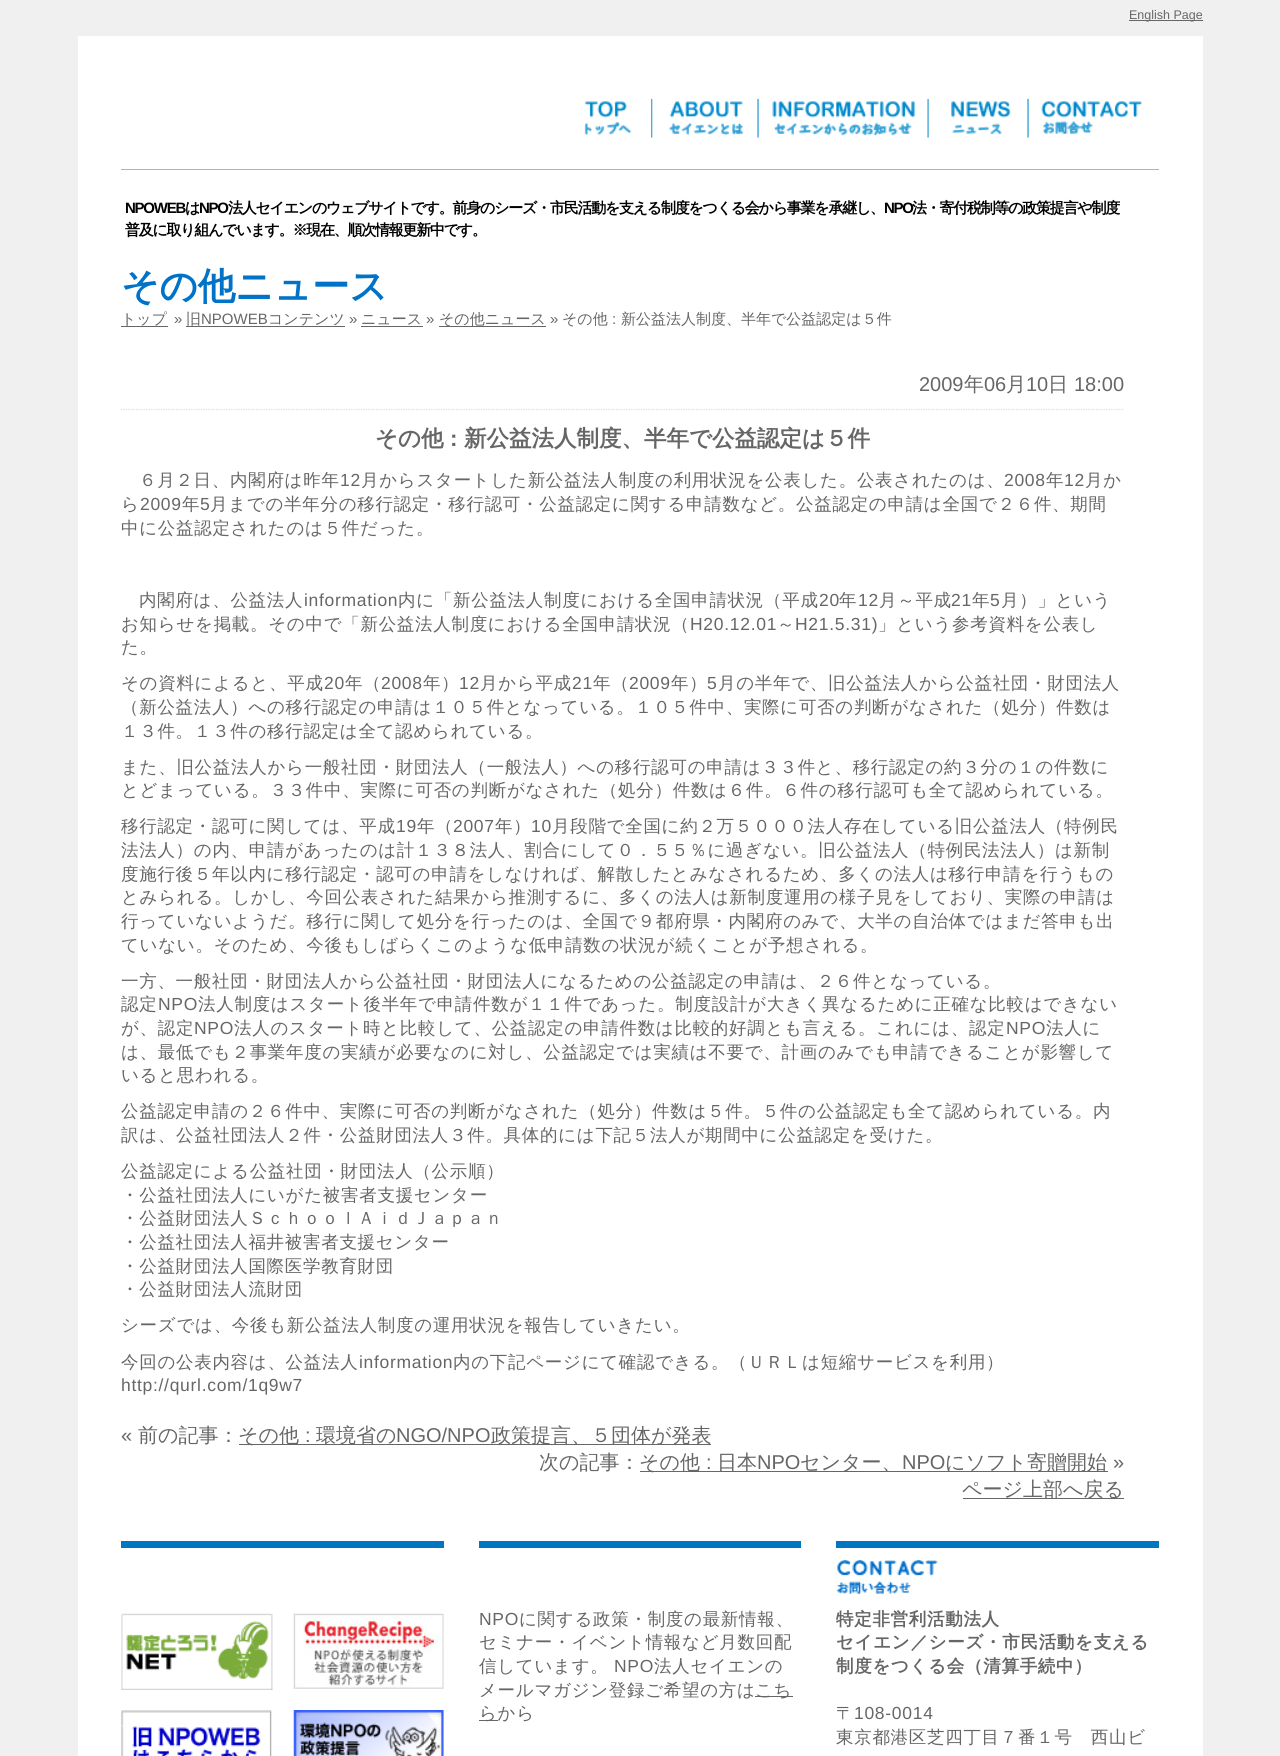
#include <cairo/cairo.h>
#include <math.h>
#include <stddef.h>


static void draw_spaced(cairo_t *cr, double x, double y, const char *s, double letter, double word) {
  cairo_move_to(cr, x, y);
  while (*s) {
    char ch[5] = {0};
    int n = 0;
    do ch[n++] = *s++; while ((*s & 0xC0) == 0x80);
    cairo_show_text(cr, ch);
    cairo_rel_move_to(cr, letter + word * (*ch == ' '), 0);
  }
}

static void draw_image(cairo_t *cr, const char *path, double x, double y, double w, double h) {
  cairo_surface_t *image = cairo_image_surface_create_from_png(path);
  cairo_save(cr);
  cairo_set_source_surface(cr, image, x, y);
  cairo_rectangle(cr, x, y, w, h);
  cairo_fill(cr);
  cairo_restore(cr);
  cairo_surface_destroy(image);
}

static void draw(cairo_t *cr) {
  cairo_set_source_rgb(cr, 240 / 255.0, 240 / 255.0, 240 / 255.0);
  cairo_paint(cr);
  cairo_set_source_rgb(cr, 102 / 255.0, 102 / 255.0, 102 / 255.0);
  cairo_rectangle(cr, 1129, 20, 74, 1);
  cairo_fill(cr);
  cairo_set_source_rgb(cr, 1, 1, 1);
  cairo_rectangle(cr, 78, 36, 1125, 1720);
  cairo_fill(cr);
  draw_image(cr, "images/1.png", 584, 98, 69, 40);
  draw_image(cr, "images/2.png", 652, 98, 107, 40);
  draw_image(cr, "images/3.png", 758, 98, 171, 40);
  draw_image(cr, "images/4.png", 928, 98, 101, 40);
  draw_image(cr, "images/5.png", 1028, 99, 114, 39);
  cairo_set_source_rgb(cr, 178 / 255.0, 178 / 255.0, 178 / 255.0);
  cairo_rectangle(cr, 121, 169, 1038, 1);
  cairo_fill(cr);
  cairo_set_source_rgb(cr, 102 / 255.0, 102 / 255.0, 102 / 255.0);
  cairo_rectangle(cr, 121, 326, 47, 1);
  cairo_fill(cr);
  cairo_rectangle(cr, 186, 326, 159, 1);
  cairo_fill(cr);
  cairo_rectangle(cr, 361, 326, 62, 1);
  cairo_fill(cr);
  cairo_rectangle(cr, 439, 326, 107, 1);
  cairo_fill(cr);
  cairo_new_path(cr);
  cairo_move_to(cr, 121, 409.5);
  cairo_line_to(cr, 1124, 409.5);
  cairo_set_source_rgb(cr, 221 / 255.0, 221 / 255.0, 221 / 255.0);
  cairo_set_line_width(cr, 1.2);
  cairo_set_dash(cr, (double[]){1.25, 1.25}, 2, 0);
  cairo_stroke(cr);
  cairo_set_source_rgb(cr, 102 / 255.0, 102 / 255.0, 102 / 255.0);
  cairo_rectangle(cr, 239, 1444, 472, 1);
  cairo_fill(cr);
  cairo_rectangle(cr, 640, 1471, 468, 1);
  cairo_fill(cr);
  cairo_rectangle(cr, 963, 1498, 161, 1);
  cairo_fill(cr);
  cairo_set_source_rgb(cr, 0, 117 / 255.0, 193 / 255.0);
  cairo_rectangle(cr, 121, 1541, 323, 7);
  cairo_fill(cr);
  draw_image(cr, "images/6.png", 121, 1613, 152, 77);
  draw_image(cr, "images/7.png", 293, 1613, 151, 76);
  draw_image(cr, "images/8.png", 121, 1710, 151, 46);
  draw_image(cr, "images/9.png", 293, 1710, 151, 46);
  cairo_rectangle(cr, 479, 1541, 322, 7);
  cairo_fill(cr);
  cairo_set_source_rgb(cr, 102 / 255.0, 102 / 255.0, 102 / 255.0);
  cairo_rectangle(cr, 755, 1696, 38, 1);
  cairo_fill(cr);
  cairo_rectangle(cr, 479, 1720, 19, 1);
  cairo_fill(cr);
  cairo_set_source_rgb(cr, 0, 117 / 255.0, 193 / 255.0);
  cairo_rectangle(cr, 836, 1541, 323, 7);
  cairo_fill(cr);
  draw_image(cr, "images/10.png", 836, 1560, 102, 34);
  cairo_select_font_face(cr, "Liberation Sans", CAIRO_FONT_SLANT_NORMAL, CAIRO_FONT_WEIGHT_NORMAL);
  cairo_set_font_size(cr, 12.5);
  cairo_set_source_rgb(cr, 102 / 255.0, 102 / 255.0, 102 / 255.0);
  cairo_move_to(cr, 1129, 19);
  cairo_show_text(cr, "English Page");
  cairo_select_font_face(cr, "Liberation Sans", CAIRO_FONT_SLANT_NORMAL, CAIRO_FONT_WEIGHT_BOLD);
  cairo_set_font_size(cr, 15);
  cairo_set_source_rgb(cr, 0, 0, 0);
  draw_spaced(cr, 125, 213, "NPOWEB", -1.25, 0);
  cairo_select_font_face(cr, "WenQuanYi Zen Hei", CAIRO_FONT_SLANT_NORMAL, CAIRO_FONT_WEIGHT_BOLD);
  draw_spaced(cr, 185, 213, "は", -1.25, 0);
  cairo_select_font_face(cr, "Liberation Sans", CAIRO_FONT_SLANT_NORMAL, CAIRO_FONT_WEIGHT_BOLD);
  draw_spaced(cr, 199, 213, "NPO", -1.25, 0);
  cairo_select_font_face(cr, "WenQuanYi Zen Hei", CAIRO_FONT_SLANT_NORMAL, CAIRO_FONT_WEIGHT_BOLD);
  draw_spaced(cr, 228, 213, "法人セイエンのウェブサイトです。前身のシーズ・市民活動を支える制度をつくる会から事業を承継し、", -1.25, 0);
  cairo_select_font_face(cr, "Liberation Sans", CAIRO_FONT_SLANT_NORMAL, CAIRO_FONT_WEIGHT_BOLD);
  draw_spaced(cr, 884, 213, "NPO", -1.25, 0);
  cairo_select_font_face(cr, "WenQuanYi Zen Hei", CAIRO_FONT_SLANT_NORMAL, CAIRO_FONT_WEIGHT_BOLD);
  draw_spaced(cr, 912, 213, "法・寄付税制等の政策提言や制度", -1.25, 0);
  draw_spaced(cr, 125, 235, "普及に取り組んでいます。※現在、順次情報更新中です。", -1.25, 0);
  cairo_set_font_size(cr, 37.5);
  cairo_set_source_rgb(cr, 0, 114 / 255.0, 199 / 255.0);
  cairo_move_to(cr, 121, 299);
  cairo_show_text(cr, "その他ニュース");
  cairo_select_font_face(cr, "WenQuanYi Zen Hei Medium", CAIRO_FONT_SLANT_NORMAL, CAIRO_FONT_WEIGHT_NORMAL);
  cairo_set_font_size(cr, 15);
  cairo_set_source_rgb(cr, 102 / 255.0, 102 / 255.0, 102 / 255.0);
  cairo_move_to(cr, 121, 324);
  cairo_show_text(cr, "トップ");
  cairo_select_font_face(cr, "Liberation Sans", CAIRO_FONT_SLANT_NORMAL, CAIRO_FONT_WEIGHT_NORMAL);
  cairo_move_to(cr, 174, 324);
  cairo_show_text(cr, "»");
  cairo_select_font_face(cr, "WenQuanYi Zen Hei Medium", CAIRO_FONT_SLANT_NORMAL, CAIRO_FONT_WEIGHT_NORMAL);
  cairo_move_to(cr, 186, 324);
  cairo_show_text(cr, "旧");
  cairo_select_font_face(cr, "Liberation Sans", CAIRO_FONT_SLANT_NORMAL, CAIRO_FONT_WEIGHT_NORMAL);
  cairo_move_to(cr, 201, 324);
  cairo_show_text(cr, "NPOWEB");
  cairo_select_font_face(cr, "WenQuanYi Zen Hei Medium", CAIRO_FONT_SLANT_NORMAL, CAIRO_FONT_WEIGHT_NORMAL);
  cairo_move_to(cr, 268, 324);
  cairo_show_text(cr, "コンテンツ");
  cairo_select_font_face(cr, "Liberation Sans", CAIRO_FONT_SLANT_NORMAL, CAIRO_FONT_WEIGHT_NORMAL);
  cairo_move_to(cr, 349, 324);
  cairo_show_text(cr, "»");
  cairo_select_font_face(cr, "WenQuanYi Zen Hei Medium", CAIRO_FONT_SLANT_NORMAL, CAIRO_FONT_WEIGHT_NORMAL);
  cairo_move_to(cr, 361, 324);
  cairo_show_text(cr, "ニュース");
  cairo_select_font_face(cr, "Liberation Sans", CAIRO_FONT_SLANT_NORMAL, CAIRO_FONT_WEIGHT_NORMAL);
  cairo_move_to(cr, 426, 324);
  cairo_show_text(cr, "»");
  cairo_select_font_face(cr, "WenQuanYi Zen Hei Medium", CAIRO_FONT_SLANT_NORMAL, CAIRO_FONT_WEIGHT_NORMAL);
  cairo_move_to(cr, 439, 324);
  cairo_show_text(cr, "その他ニュース");
  cairo_select_font_face(cr, "Liberation Sans", CAIRO_FONT_SLANT_NORMAL, CAIRO_FONT_WEIGHT_NORMAL);
  cairo_move_to(cr, 550, 324);
  cairo_show_text(cr, "»");
  cairo_select_font_face(cr, "WenQuanYi Zen Hei Medium", CAIRO_FONT_SLANT_NORMAL, CAIRO_FONT_WEIGHT_NORMAL);
  cairo_move_to(cr, 562, 324);
  cairo_show_text(cr, "その他");
  cairo_select_font_face(cr, "Liberation Sans", CAIRO_FONT_SLANT_NORMAL, CAIRO_FONT_WEIGHT_NORMAL);
  cairo_move_to(cr, 612, 324);
  cairo_show_text(cr, ":");
  cairo_select_font_face(cr, "WenQuanYi Zen Hei Medium", CAIRO_FONT_SLANT_NORMAL, CAIRO_FONT_WEIGHT_NORMAL);
  cairo_move_to(cr, 621, 324);
  cairo_show_text(cr, "新公益法人制度、半年で公益認定は５件");
  cairo_select_font_face(cr, "Liberation Sans", CAIRO_FONT_SLANT_NORMAL, CAIRO_FONT_WEIGHT_NORMAL);
  cairo_set_font_size(cr, 20);
  cairo_move_to(cr, 919, 391);
  cairo_show_text(cr, "2009");
  cairo_select_font_face(cr, "WenQuanYi Zen Hei Medium", CAIRO_FONT_SLANT_NORMAL, CAIRO_FONT_WEIGHT_NORMAL);
  cairo_move_to(cr, 964, 391);
  cairo_show_text(cr, "年");
  cairo_select_font_face(cr, "Liberation Sans", CAIRO_FONT_SLANT_NORMAL, CAIRO_FONT_WEIGHT_NORMAL);
  cairo_move_to(cr, 984, 391);
  cairo_show_text(cr, "06");
  cairo_select_font_face(cr, "WenQuanYi Zen Hei Medium", CAIRO_FONT_SLANT_NORMAL, CAIRO_FONT_WEIGHT_NORMAL);
  cairo_move_to(cr, 1006, 391);
  cairo_show_text(cr, "月");
  cairo_select_font_face(cr, "Liberation Sans", CAIRO_FONT_SLANT_NORMAL, CAIRO_FONT_WEIGHT_NORMAL);
  cairo_move_to(cr, 1026, 391);
  cairo_show_text(cr, "10");
  cairo_select_font_face(cr, "WenQuanYi Zen Hei Medium", CAIRO_FONT_SLANT_NORMAL, CAIRO_FONT_WEIGHT_NORMAL);
  cairo_move_to(cr, 1048, 391);
  cairo_show_text(cr, "日");
  cairo_select_font_face(cr, "Liberation Sans", CAIRO_FONT_SLANT_NORMAL, CAIRO_FONT_WEIGHT_NORMAL);
  cairo_move_to(cr, 1074, 391);
  cairo_show_text(cr, "18:00");
  cairo_select_font_face(cr, "WenQuanYi Zen Hei", CAIRO_FONT_SLANT_NORMAL, CAIRO_FONT_WEIGHT_BOLD);
  cairo_set_font_size(cr, 22.5);
  cairo_move_to(cr, 375, 446);
  cairo_show_text(cr, "その他");
  cairo_select_font_face(cr, "Liberation Sans", CAIRO_FONT_SLANT_NORMAL, CAIRO_FONT_WEIGHT_BOLD);
  cairo_move_to(cr, 450, 446);
  cairo_show_text(cr, ":");
  cairo_select_font_face(cr, "WenQuanYi Zen Hei", CAIRO_FONT_SLANT_NORMAL, CAIRO_FONT_WEIGHT_BOLD);
  cairo_move_to(cr, 464, 446);
  cairo_show_text(cr, "新公益法人制度、半年で公益認定は５件");
  cairo_select_font_face(cr, "WenQuanYi Zen Hei Medium", CAIRO_FONT_SLANT_NORMAL, CAIRO_FONT_WEIGHT_NORMAL);
  cairo_set_font_size(cr, 17.5);
  draw_spaced(cr, 139, 486, "６月２日、内閣府は昨年", 0.7, 0);
  cairo_select_font_face(cr, "Liberation Sans", CAIRO_FONT_SLANT_NORMAL, CAIRO_FONT_WEIGHT_NORMAL);
  draw_spaced(cr, 340, 486, "12", 0.7, 0);
  cairo_select_font_face(cr, "WenQuanYi Zen Hei Medium", CAIRO_FONT_SLANT_NORMAL, CAIRO_FONT_WEIGHT_NORMAL);
  draw_spaced(cr, 361, 486, "月からスタートした新公益法人制度の利用状況を公表した。公表されたのは、", 0.7, 0);
  cairo_select_font_face(cr, "Liberation Sans", CAIRO_FONT_SLANT_NORMAL, CAIRO_FONT_WEIGHT_NORMAL);
  draw_spaced(cr, 1004, 486, "2008", 0.7, 0);
  cairo_select_font_face(cr, "WenQuanYi Zen Hei Medium", CAIRO_FONT_SLANT_NORMAL, CAIRO_FONT_WEIGHT_NORMAL);
  draw_spaced(cr, 1046, 486, "年", 0.7, 0);
  cairo_select_font_face(cr, "Liberation Sans", CAIRO_FONT_SLANT_NORMAL, CAIRO_FONT_WEIGHT_NORMAL);
  draw_spaced(cr, 1064, 486, "12", 0.7, 0);
  cairo_select_font_face(cr, "WenQuanYi Zen Hei Medium", CAIRO_FONT_SLANT_NORMAL, CAIRO_FONT_WEIGHT_NORMAL);
  draw_spaced(cr, 1085, 486, "月か", 0.7, 0);
  draw_spaced(cr, 121, 510, "ら", 0.7, 0);
  cairo_select_font_face(cr, "Liberation Sans", CAIRO_FONT_SLANT_NORMAL, CAIRO_FONT_WEIGHT_NORMAL);
  draw_spaced(cr, 140, 510, "2009", 0.7, 0);
  cairo_select_font_face(cr, "WenQuanYi Zen Hei Medium", CAIRO_FONT_SLANT_NORMAL, CAIRO_FONT_WEIGHT_NORMAL);
  draw_spaced(cr, 182, 510, "年", 0.7, 0);
  cairo_select_font_face(cr, "Liberation Sans", CAIRO_FONT_SLANT_NORMAL, CAIRO_FONT_WEIGHT_NORMAL);
  draw_spaced(cr, 200, 510, "5", 0.7, 0);
  cairo_select_font_face(cr, "WenQuanYi Zen Hei Medium", CAIRO_FONT_SLANT_NORMAL, CAIRO_FONT_WEIGHT_NORMAL);
  draw_spaced(cr, 210, 510, "月までの半年分の移行認定・移行認可・公益認定に関する申請数など。公益認定の申請は全国で２６件、期間", 0.7, 0);
  draw_spaced(cr, 121, 534, "中に公益認定されたのは５件だった。", 0.7, 0);
  draw_spaced(cr, 139, 606, "内閣府は、公益法人", 0.7, 0);
  cairo_select_font_face(cr, "Liberation Sans", CAIRO_FONT_SLANT_NORMAL, CAIRO_FONT_WEIGHT_NORMAL);
  draw_spaced(cr, 304, 606, "information", 0.7, 0);
  cairo_select_font_face(cr, "WenQuanYi Zen Hei Medium", CAIRO_FONT_SLANT_NORMAL, CAIRO_FONT_WEIGHT_NORMAL);
  draw_spaced(cr, 398, 606, "内に「新公益法人制度における全国申請状況（平成", 0.7, 0);
  cairo_select_font_face(cr, "Liberation Sans", CAIRO_FONT_SLANT_NORMAL, CAIRO_FONT_WEIGHT_NORMAL);
  draw_spaced(cr, 819, 606, "20", 0.7, 0);
  cairo_select_font_face(cr, "WenQuanYi Zen Hei Medium", CAIRO_FONT_SLANT_NORMAL, CAIRO_FONT_WEIGHT_NORMAL);
  draw_spaced(cr, 839, 606, "年", 0.7, 0);
  cairo_select_font_face(cr, "Liberation Sans", CAIRO_FONT_SLANT_NORMAL, CAIRO_FONT_WEIGHT_NORMAL);
  draw_spaced(cr, 858, 606, "12", 0.7, 0);
  cairo_select_font_face(cr, "WenQuanYi Zen Hei Medium", CAIRO_FONT_SLANT_NORMAL, CAIRO_FONT_WEIGHT_NORMAL);
  draw_spaced(cr, 879, 606, "月～平成", 0.7, 0);
  cairo_select_font_face(cr, "Liberation Sans", CAIRO_FONT_SLANT_NORMAL, CAIRO_FONT_WEIGHT_NORMAL);
  draw_spaced(cr, 951, 606, "21", 0.7, 0);
  cairo_select_font_face(cr, "WenQuanYi Zen Hei Medium", CAIRO_FONT_SLANT_NORMAL, CAIRO_FONT_WEIGHT_NORMAL);
  draw_spaced(cr, 972, 606, "年", 0.7, 0);
  cairo_select_font_face(cr, "Liberation Sans", CAIRO_FONT_SLANT_NORMAL, CAIRO_FONT_WEIGHT_NORMAL);
  draw_spaced(cr, 990, 606, "5", 0.7, 0);
  cairo_select_font_face(cr, "WenQuanYi Zen Hei Medium", CAIRO_FONT_SLANT_NORMAL, CAIRO_FONT_WEIGHT_NORMAL);
  draw_spaced(cr, 1001, 606, "月）」という", 0.7, 0);
  draw_spaced(cr, 121, 630, "お知らせを掲載。その中で「新公益法人制度における全国申請状況（", 0.7, 0);
  cairo_select_font_face(cr, "Liberation Sans", CAIRO_FONT_SLANT_NORMAL, CAIRO_FONT_WEIGHT_NORMAL);
  draw_spaced(cr, 690, 630, "H20.12.01", 0.7, 0);
  cairo_select_font_face(cr, "WenQuanYi Zen Hei Medium", CAIRO_FONT_SLANT_NORMAL, CAIRO_FONT_WEIGHT_NORMAL);
  draw_spaced(cr, 777, 630, "～", 0.7, 0);
  cairo_select_font_face(cr, "Liberation Sans", CAIRO_FONT_SLANT_NORMAL, CAIRO_FONT_WEIGHT_NORMAL);
  draw_spaced(cr, 795, 630, "H21.5.31)", 0.7, 0);
  cairo_select_font_face(cr, "WenQuanYi Zen Hei Medium", CAIRO_FONT_SLANT_NORMAL, CAIRO_FONT_WEIGHT_NORMAL);
  draw_spaced(cr, 878, 630, "」という参考資料を公表し", 0.7, 0);
  draw_spaced(cr, 121, 653, "た。", 0.7, 0);
  draw_spaced(cr, 121, 689, "その資料によると、平成", 0.7, 0);
  cairo_select_font_face(cr, "Liberation Sans", CAIRO_FONT_SLANT_NORMAL, CAIRO_FONT_WEIGHT_NORMAL);
  draw_spaced(cr, 324, 689, "20", 0.7, 0);
  cairo_select_font_face(cr, "WenQuanYi Zen Hei Medium", CAIRO_FONT_SLANT_NORMAL, CAIRO_FONT_WEIGHT_NORMAL);
  draw_spaced(cr, 345, 689, "年（", 0.7, 0);
  cairo_select_font_face(cr, "Liberation Sans", CAIRO_FONT_SLANT_NORMAL, CAIRO_FONT_WEIGHT_NORMAL);
  draw_spaced(cr, 381, 689, "2008", 0.7, 0);
  cairo_select_font_face(cr, "WenQuanYi Zen Hei Medium", CAIRO_FONT_SLANT_NORMAL, CAIRO_FONT_WEIGHT_NORMAL);
  draw_spaced(cr, 423, 689, "年）", 0.7, 0);
  cairo_select_font_face(cr, "Liberation Sans", CAIRO_FONT_SLANT_NORMAL, CAIRO_FONT_WEIGHT_NORMAL);
  draw_spaced(cr, 459, 689, "12", 0.7, 0);
  cairo_select_font_face(cr, "WenQuanYi Zen Hei Medium", CAIRO_FONT_SLANT_NORMAL, CAIRO_FONT_WEIGHT_NORMAL);
  draw_spaced(cr, 480, 689, "月から平成", 0.7, 0);
  cairo_select_font_face(cr, "Liberation Sans", CAIRO_FONT_SLANT_NORMAL, CAIRO_FONT_WEIGHT_NORMAL);
  draw_spaced(cr, 572, 689, "21", 0.7, 0);
  cairo_select_font_face(cr, "WenQuanYi Zen Hei Medium", CAIRO_FONT_SLANT_NORMAL, CAIRO_FONT_WEIGHT_NORMAL);
  draw_spaced(cr, 593, 689, "年（", 0.7, 0);
  cairo_select_font_face(cr, "Liberation Sans", CAIRO_FONT_SLANT_NORMAL, CAIRO_FONT_WEIGHT_NORMAL);
  draw_spaced(cr, 629, 689, "2009", 0.7, 0);
  cairo_select_font_face(cr, "WenQuanYi Zen Hei Medium", CAIRO_FONT_SLANT_NORMAL, CAIRO_FONT_WEIGHT_NORMAL);
  draw_spaced(cr, 671, 689, "年）", 0.7, 0);
  cairo_select_font_face(cr, "Liberation Sans", CAIRO_FONT_SLANT_NORMAL, CAIRO_FONT_WEIGHT_NORMAL);
  draw_spaced(cr, 707, 689, "5", 0.7, 0);
  cairo_select_font_face(cr, "WenQuanYi Zen Hei Medium", CAIRO_FONT_SLANT_NORMAL, CAIRO_FONT_WEIGHT_NORMAL);
  draw_spaced(cr, 718, 689, "月の半年で、旧公益法人から公益社団・財団法人", 0.7, 0);
  draw_spaced(cr, 121, 713, "（新公益法人）への移行認定の申請は１０５件となっている。１０５件中、実際に可否の判断がなされた（処分）件数は", 0.7, 0);
  draw_spaced(cr, 121, 737, "１３件。１３件の移行認定は全て認められている。", 0.7, 0);
  draw_spaced(cr, 121, 773, "また、旧公益法人から一般社団・財団法人（一般法人）への移行認可の申請は３３件と、移行認定の約３分の１の件数に", 0.7, 0);
  draw_spaced(cr, 121, 796, "とどまっている。３３件中、実際に可否の判断がなされた（処分）件数は６件。６件の移行認可も全て認められている。", 0.7, 0);
  draw_spaced(cr, 121, 832, "移行認定・認可に関しては、平成", 0.7, 0);
  cairo_select_font_face(cr, "Liberation Sans", CAIRO_FONT_SLANT_NORMAL, CAIRO_FONT_WEIGHT_NORMAL);
  draw_spaced(cr, 396, 832, "19", 0.7, 0);
  cairo_select_font_face(cr, "WenQuanYi Zen Hei Medium", CAIRO_FONT_SLANT_NORMAL, CAIRO_FONT_WEIGHT_NORMAL);
  draw_spaced(cr, 417, 832, "年（", 0.7, 0);
  cairo_select_font_face(cr, "Liberation Sans", CAIRO_FONT_SLANT_NORMAL, CAIRO_FONT_WEIGHT_NORMAL);
  draw_spaced(cr, 453, 832, "2007", 0.7, 0);
  cairo_select_font_face(cr, "WenQuanYi Zen Hei Medium", CAIRO_FONT_SLANT_NORMAL, CAIRO_FONT_WEIGHT_NORMAL);
  draw_spaced(cr, 495, 832, "年）", 0.7, 0);
  cairo_select_font_face(cr, "Liberation Sans", CAIRO_FONT_SLANT_NORMAL, CAIRO_FONT_WEIGHT_NORMAL);
  draw_spaced(cr, 531, 832, "10", 0.7, 0);
  cairo_select_font_face(cr, "WenQuanYi Zen Hei Medium", CAIRO_FONT_SLANT_NORMAL, CAIRO_FONT_WEIGHT_NORMAL);
  draw_spaced(cr, 552, 832, "月段階で全国に約２万５０００法人存在している旧公益法人（特例民", 0.7, 0);
  draw_spaced(cr, 121, 856, "法法人）の内、申請があったのは計１３８法人、割合にして０．５５％に過ぎない。旧公益法人（特例民法法人）は新制", 0.7, 0);
  draw_spaced(cr, 121, 880, "度施行後５年以内に移行認定・認可の申請をしなければ、解散したとみなされるため、多くの法人は移行申請を行うもの", 0.7, 0);
  draw_spaced(cr, 121, 903, "とみられる。しかし、今回公表された結果から推測するに、多くの法人は新制度運用の様子見をしており、実際の申請は", 0.7, 0);
  draw_spaced(cr, 121, 927, "行っていないようだ。移行に関して処分を行ったのは、全国で９都府県・内閣府のみで、大半の自治体ではまだ答申も出", 0.7, 0);
  draw_spaced(cr, 121, 951, "ていない。そのため、今後もしばらくこのような低申請数の状況が続くことが予想される。", 0.7, 0);
  draw_spaced(cr, 121, 987, "一方、一般社団・財団法人から公益社団・財団法人になるための公益認定の申請は、２６件となっている。", 0.7, 0);
  draw_spaced(cr, 121, 1010, "認定", 0.7, 0);
  cairo_select_font_face(cr, "Liberation Sans", CAIRO_FONT_SLANT_NORMAL, CAIRO_FONT_WEIGHT_NORMAL);
  draw_spaced(cr, 158, 1010, "NPO", 0.7, 0);
  cairo_select_font_face(cr, "WenQuanYi Zen Hei Medium", CAIRO_FONT_SLANT_NORMAL, CAIRO_FONT_WEIGHT_NORMAL);
  draw_spaced(cr, 198, 1010, "法人制度はスタート後半年で申請件数が１１件であった。制度設計が大きく異なるために正確な比較はできない", 0.7, 0);
  draw_spaced(cr, 121, 1034, "が、認定", 0.7, 0);
  cairo_select_font_face(cr, "Liberation Sans", CAIRO_FONT_SLANT_NORMAL, CAIRO_FONT_WEIGHT_NORMAL);
  draw_spaced(cr, 194, 1034, "NPO", 0.7, 0);
  cairo_select_font_face(cr, "WenQuanYi Zen Hei Medium", CAIRO_FONT_SLANT_NORMAL, CAIRO_FONT_WEIGHT_NORMAL);
  draw_spaced(cr, 234, 1034, "法人のスタート時と比較して、公益認定の申請件数は比較的好調とも言える。これには、認定", 0.7, 0);
  cairo_select_font_face(cr, "Liberation Sans", CAIRO_FONT_SLANT_NORMAL, CAIRO_FONT_WEIGHT_NORMAL);
  draw_spaced(cr, 1006, 1034, "NPO", 0.7, 0);
  cairo_select_font_face(cr, "WenQuanYi Zen Hei Medium", CAIRO_FONT_SLANT_NORMAL, CAIRO_FONT_WEIGHT_NORMAL);
  draw_spaced(cr, 1046, 1034, "法人に", 0.7, 0);
  draw_spaced(cr, 121, 1058, "は、最低でも２事業年度の実績が必要なのに対し、公益認定では実績は不要で、計画のみでも申請できることが影響して", 0.7, 0);
  draw_spaced(cr, 121, 1081, "いると思われる。", 0.7, 0);
  draw_spaced(cr, 121, 1117, "公益認定申請の２６件中、実際に可否の判断がなされた（処分）件数は５件。５件の公益認定も全て認められている。内", 0.7, 0);
  draw_spaced(cr, 121, 1141, "訳は、公益社団法人２件・公益財団法人３件。具体的には下記５法人が期間中に公益認定を受けた。", 0.7, 0);
  draw_spaced(cr, 121, 1177, "公益認定による公益社団・財団法人（公示順）", 0.7, 0);
  draw_spaced(cr, 121, 1201, "・公益社団法人にいがた被害者支援センター", 0.7, 0);
  draw_spaced(cr, 121, 1224, "・公益財団法人ＳｃｈｏｏｌＡｉｄＪａｐａｎ", 0.7, 0);
  draw_spaced(cr, 121, 1248, "・公益社団法人福井被害者支援センター", 0.7, 0);
  draw_spaced(cr, 121, 1272, "・公益財団法人国際医学教育財団", 0.7, 0);
  draw_spaced(cr, 121, 1295, "・公益財団法人流財団", 0.7, 0);
  draw_spaced(cr, 121, 1331, "シーズでは、今後も新公益法人制度の運用状況を報告していきたい。", 0.7, 0);
  draw_spaced(cr, 121, 1368, "今回の公表内容は、公益法人", 0.7, 0);
  cairo_select_font_face(cr, "Liberation Sans", CAIRO_FONT_SLANT_NORMAL, CAIRO_FONT_WEIGHT_NORMAL);
  draw_spaced(cr, 359, 1368, "information", 0.7, 0);
  cairo_select_font_face(cr, "WenQuanYi Zen Hei Medium", CAIRO_FONT_SLANT_NORMAL, CAIRO_FONT_WEIGHT_NORMAL);
  draw_spaced(cr, 453, 1368, "内の下記ページにて確認できる。（ＵＲＬは短縮サービスを利用）", 0.7, 0);
  cairo_select_font_face(cr, "Liberation Sans", CAIRO_FONT_SLANT_NORMAL, CAIRO_FONT_WEIGHT_NORMAL);
  draw_spaced(cr, 121, 1391, "http://qurl.com/1q9w7", 0.7, 0);
  cairo_set_font_size(cr, 20);
  cairo_move_to(cr, 121, 1442);
  cairo_show_text(cr, "«");
  cairo_select_font_face(cr, "WenQuanYi Zen Hei Medium", CAIRO_FONT_SLANT_NORMAL, CAIRO_FONT_WEIGHT_NORMAL);
  cairo_move_to(cr, 138, 1442);
  cairo_show_text(cr, "前の記事：");
  cairo_move_to(cr, 238, 1442);
  cairo_show_text(cr, "その他");
  cairo_select_font_face(cr, "Liberation Sans", CAIRO_FONT_SLANT_NORMAL, CAIRO_FONT_WEIGHT_NORMAL);
  cairo_move_to(cr, 305, 1442);
  cairo_show_text(cr, ":");
  cairo_select_font_face(cr, "WenQuanYi Zen Hei Medium", CAIRO_FONT_SLANT_NORMAL, CAIRO_FONT_WEIGHT_NORMAL);
  cairo_move_to(cr, 316, 1442);
  cairo_show_text(cr, "環境省の");
  cairo_select_font_face(cr, "Liberation Sans", CAIRO_FONT_SLANT_NORMAL, CAIRO_FONT_WEIGHT_NORMAL);
  cairo_move_to(cr, 396, 1442);
  cairo_show_text(cr, "NGO/NPO");
  cairo_select_font_face(cr, "WenQuanYi Zen Hei Medium", CAIRO_FONT_SLANT_NORMAL, CAIRO_FONT_WEIGHT_NORMAL);
  cairo_move_to(cr, 491, 1442);
  cairo_show_text(cr, "政策提言、５団体が発表");
  cairo_move_to(cr, 539, 1469);
  cairo_show_text(cr, "次の記事：");
  cairo_move_to(cr, 639, 1469);
  cairo_show_text(cr, "その他");
  cairo_select_font_face(cr, "Liberation Sans", CAIRO_FONT_SLANT_NORMAL, CAIRO_FONT_WEIGHT_NORMAL);
  cairo_move_to(cr, 706, 1469);
  cairo_show_text(cr, ":");
  cairo_select_font_face(cr, "WenQuanYi Zen Hei Medium", CAIRO_FONT_SLANT_NORMAL, CAIRO_FONT_WEIGHT_NORMAL);
  cairo_move_to(cr, 717, 1469);
  cairo_show_text(cr, "日本");
  cairo_select_font_face(cr, "Liberation Sans", CAIRO_FONT_SLANT_NORMAL, CAIRO_FONT_WEIGHT_NORMAL);
  cairo_move_to(cr, 757, 1469);
  cairo_show_text(cr, "NPO");
  cairo_select_font_face(cr, "WenQuanYi Zen Hei Medium", CAIRO_FONT_SLANT_NORMAL, CAIRO_FONT_WEIGHT_NORMAL);
  cairo_move_to(cr, 800, 1469);
  cairo_show_text(cr, "センター、");
  cairo_select_font_face(cr, "Liberation Sans", CAIRO_FONT_SLANT_NORMAL, CAIRO_FONT_WEIGHT_NORMAL);
  cairo_move_to(cr, 902, 1469);
  cairo_show_text(cr, "NPO");
  cairo_select_font_face(cr, "WenQuanYi Zen Hei Medium", CAIRO_FONT_SLANT_NORMAL, CAIRO_FONT_WEIGHT_NORMAL);
  cairo_move_to(cr, 945, 1469);
  cairo_show_text(cr, "にソフト寄贈開始");
  cairo_select_font_face(cr, "Liberation Sans", CAIRO_FONT_SLANT_NORMAL, CAIRO_FONT_WEIGHT_NORMAL);
  cairo_move_to(cr, 1113, 1469);
  cairo_show_text(cr, "»");
  cairo_select_font_face(cr, "WenQuanYi Zen Hei Medium", CAIRO_FONT_SLANT_NORMAL, CAIRO_FONT_WEIGHT_NORMAL);
  cairo_move_to(cr, 962, 1496);
  cairo_show_text(cr, "ページ上部へ戻る");
  cairo_select_font_face(cr, "Liberation Sans", CAIRO_FONT_SLANT_NORMAL, CAIRO_FONT_WEIGHT_NORMAL);
  cairo_set_font_size(cr, 17.5);
  draw_spaced(cr, 479, 1625, "NPO", 0.7, 0);
  cairo_select_font_face(cr, "WenQuanYi Zen Hei Medium", CAIRO_FONT_SLANT_NORMAL, CAIRO_FONT_WEIGHT_NORMAL);
  draw_spaced(cr, 519, 1625, "に関する政策・制度の最新情報、", 0.7, 0);
  draw_spaced(cr, 479, 1648, "セミナー・イベント情報など月数回配", 0.7, 0);
  draw_spaced(cr, 479, 1672, "信しています。", 0.7, 0);
  cairo_select_font_face(cr, "Liberation Sans", CAIRO_FONT_SLANT_NORMAL, CAIRO_FONT_WEIGHT_NORMAL);
  draw_spaced(cr, 614, 1672, "NPO", 0.7, 0);
  cairo_select_font_face(cr, "WenQuanYi Zen Hei Medium", CAIRO_FONT_SLANT_NORMAL, CAIRO_FONT_WEIGHT_NORMAL);
  draw_spaced(cr, 654, 1672, "法人セイエンの", 0.7, 0);
  draw_spaced(cr, 479, 1696, "メールマガジン登録ご希望の方は", 0.7, 0);
  draw_spaced(cr, 755, 1696, "こち", 0.7, 0);
  draw_spaced(cr, 479, 1719, "らから", 0.7, 0);
  cairo_select_font_face(cr, "WenQuanYi Zen Hei", CAIRO_FONT_SLANT_NORMAL, CAIRO_FONT_WEIGHT_BOLD);
  draw_spaced(cr, 836, 1625, "特定非営利活動法人", 0.7, 0);
  draw_spaced(cr, 836, 1648, "セイエン／シーズ・市民活動を支える", 0.7, 0);
  draw_spaced(cr, 836, 1672, "制度をつくる会（清算手続中）", 0.7, 0);
  cairo_select_font_face(cr, "WenQuanYi Zen Hei Medium", CAIRO_FONT_SLANT_NORMAL, CAIRO_FONT_WEIGHT_NORMAL);
  draw_spaced(cr, 836, 1719, "〒", 0.7, 0);
  cairo_select_font_face(cr, "Liberation Sans", CAIRO_FONT_SLANT_NORMAL, CAIRO_FONT_WEIGHT_NORMAL);
  draw_spaced(cr, 854, 1719, "108-0014", 0.7, 0);
  cairo_select_font_face(cr, "WenQuanYi Zen Hei Medium", CAIRO_FONT_SLANT_NORMAL, CAIRO_FONT_WEIGHT_NORMAL);
  draw_spaced(cr, 836, 1743, "東京都港区芝四丁目７番１号　西山ビ", 0.7, 0);
}

int main(void) {
  cairo_surface_t *surface = cairo_image_surface_create(CAIRO_FORMAT_RGB24, 1280, 1756);
  cairo_t *cr = cairo_create(surface);
  cairo_font_options_t *options = cairo_font_options_create();
  cairo_font_options_set_hint_metrics(options, CAIRO_HINT_METRICS_OFF);
  cairo_font_options_set_hint_style(options, CAIRO_HINT_STYLE_NONE);
  cairo_set_font_options(cr, options);
  cairo_set_miter_limit(cr, 4);
  draw(cr);
  cairo_surface_write_to_png(surface, "out.png");
  cairo_font_options_destroy(options);
  cairo_destroy(cr);
  cairo_surface_destroy(surface);
  return 0;
}
